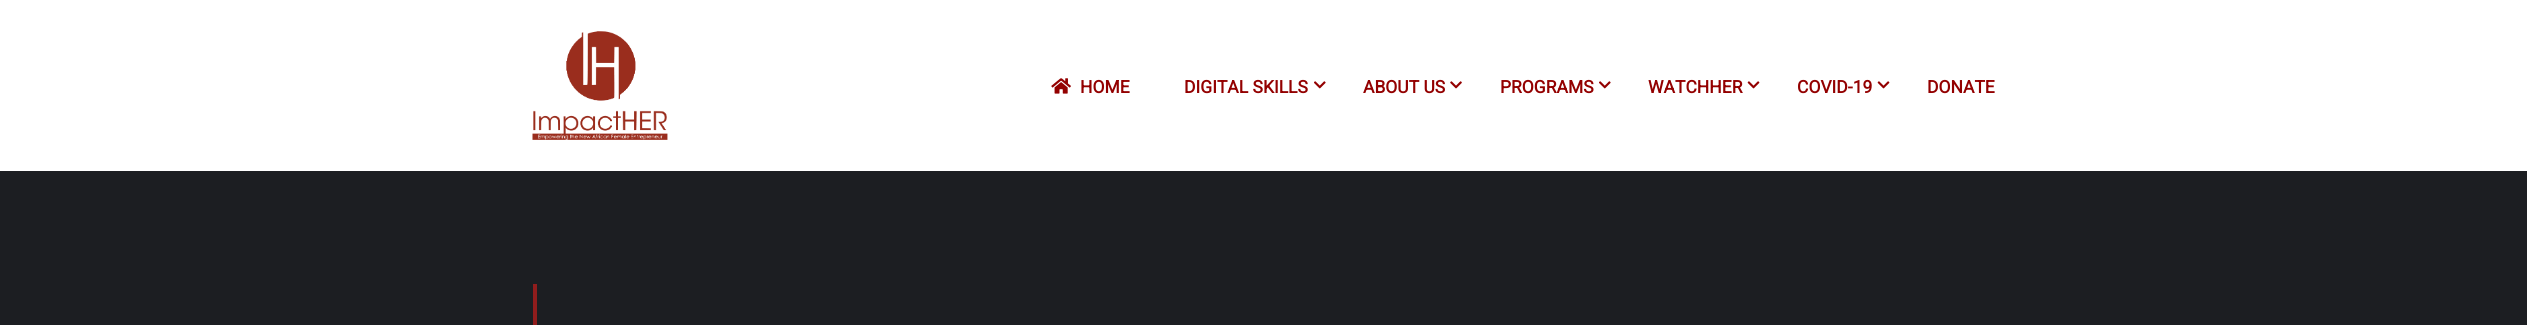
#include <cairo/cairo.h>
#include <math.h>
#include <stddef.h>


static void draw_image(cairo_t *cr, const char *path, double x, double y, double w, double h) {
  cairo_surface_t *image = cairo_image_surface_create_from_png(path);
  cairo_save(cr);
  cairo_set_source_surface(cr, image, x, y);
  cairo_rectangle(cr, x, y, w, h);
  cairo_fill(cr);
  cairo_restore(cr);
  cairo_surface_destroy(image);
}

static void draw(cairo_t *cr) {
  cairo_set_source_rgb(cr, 1, 1, 1);
  cairo_paint(cr);
  draw_image(cr, "images/1.png", 532, 31, 136, 109);
  draw_image(cr, "images/2.png", 1051, 78, 20, 16);
  draw_image(cr, "images/3.png", 1314, 81, 12, 8);
  draw_image(cr, "images/4.png", 1450, 81, 12, 8);
  draw_image(cr, "images/3.png", 1599, 81, 12, 8);
  draw_image(cr, "images/5.png", 1747, 81, 13, 8);
  draw_image(cr, "images/5.png", 1877, 81, 13, 8);
  cairo_set_source_rgb(cr, 28 / 255.0, 30 / 255.0, 34 / 255.0);
  cairo_rectangle(cr, 0, 171, 2527, 154);
  cairo_fill(cr);
  cairo_set_source_rgb(cr, 145 / 255.0, 29 / 255.0, 29 / 255.0);
  cairo_rectangle(cr, 533, 284, 4, 41);
  cairo_fill(cr);
  cairo_select_font_face(cr, "Roboto", CAIRO_FONT_SLANT_NORMAL, CAIRO_FONT_WEIGHT_BOLD);
  cairo_set_font_size(cr, 17.5);
  cairo_set_source_rgb(cr, 147 / 255.0, 0, 0);
  cairo_move_to(cr, 1080, 93);
  cairo_show_text(cr, "HOME");
  cairo_move_to(cr, 1184, 93);
  cairo_show_text(cr, "DIGITAL SKILLS");
  cairo_move_to(cr, 1363, 93);
  cairo_show_text(cr, "ABOUT US");
  cairo_move_to(cr, 1500, 93);
  cairo_show_text(cr, "PROGRAMS");
  cairo_move_to(cr, 1648, 93);
  cairo_show_text(cr, "WATCHHER");
  cairo_move_to(cr, 1797, 93);
  cairo_show_text(cr, "COVID-19");
  cairo_move_to(cr, 1927, 93);
  cairo_show_text(cr, "DONATE");
}

int main(void) {
  cairo_surface_t *surface = cairo_image_surface_create(CAIRO_FORMAT_RGB24, 2527, 325);
  cairo_t *cr = cairo_create(surface);
  cairo_font_options_t *options = cairo_font_options_create();
  cairo_font_options_set_hint_metrics(options, CAIRO_HINT_METRICS_OFF);
  cairo_font_options_set_hint_style(options, CAIRO_HINT_STYLE_NONE);
  cairo_set_font_options(cr, options);
  cairo_set_miter_limit(cr, 4);
  draw(cr);
  cairo_surface_write_to_png(surface, "out.png");
  cairo_font_options_destroy(options);
  cairo_destroy(cr);
  cairo_surface_destroy(surface);
  return 0;
}
